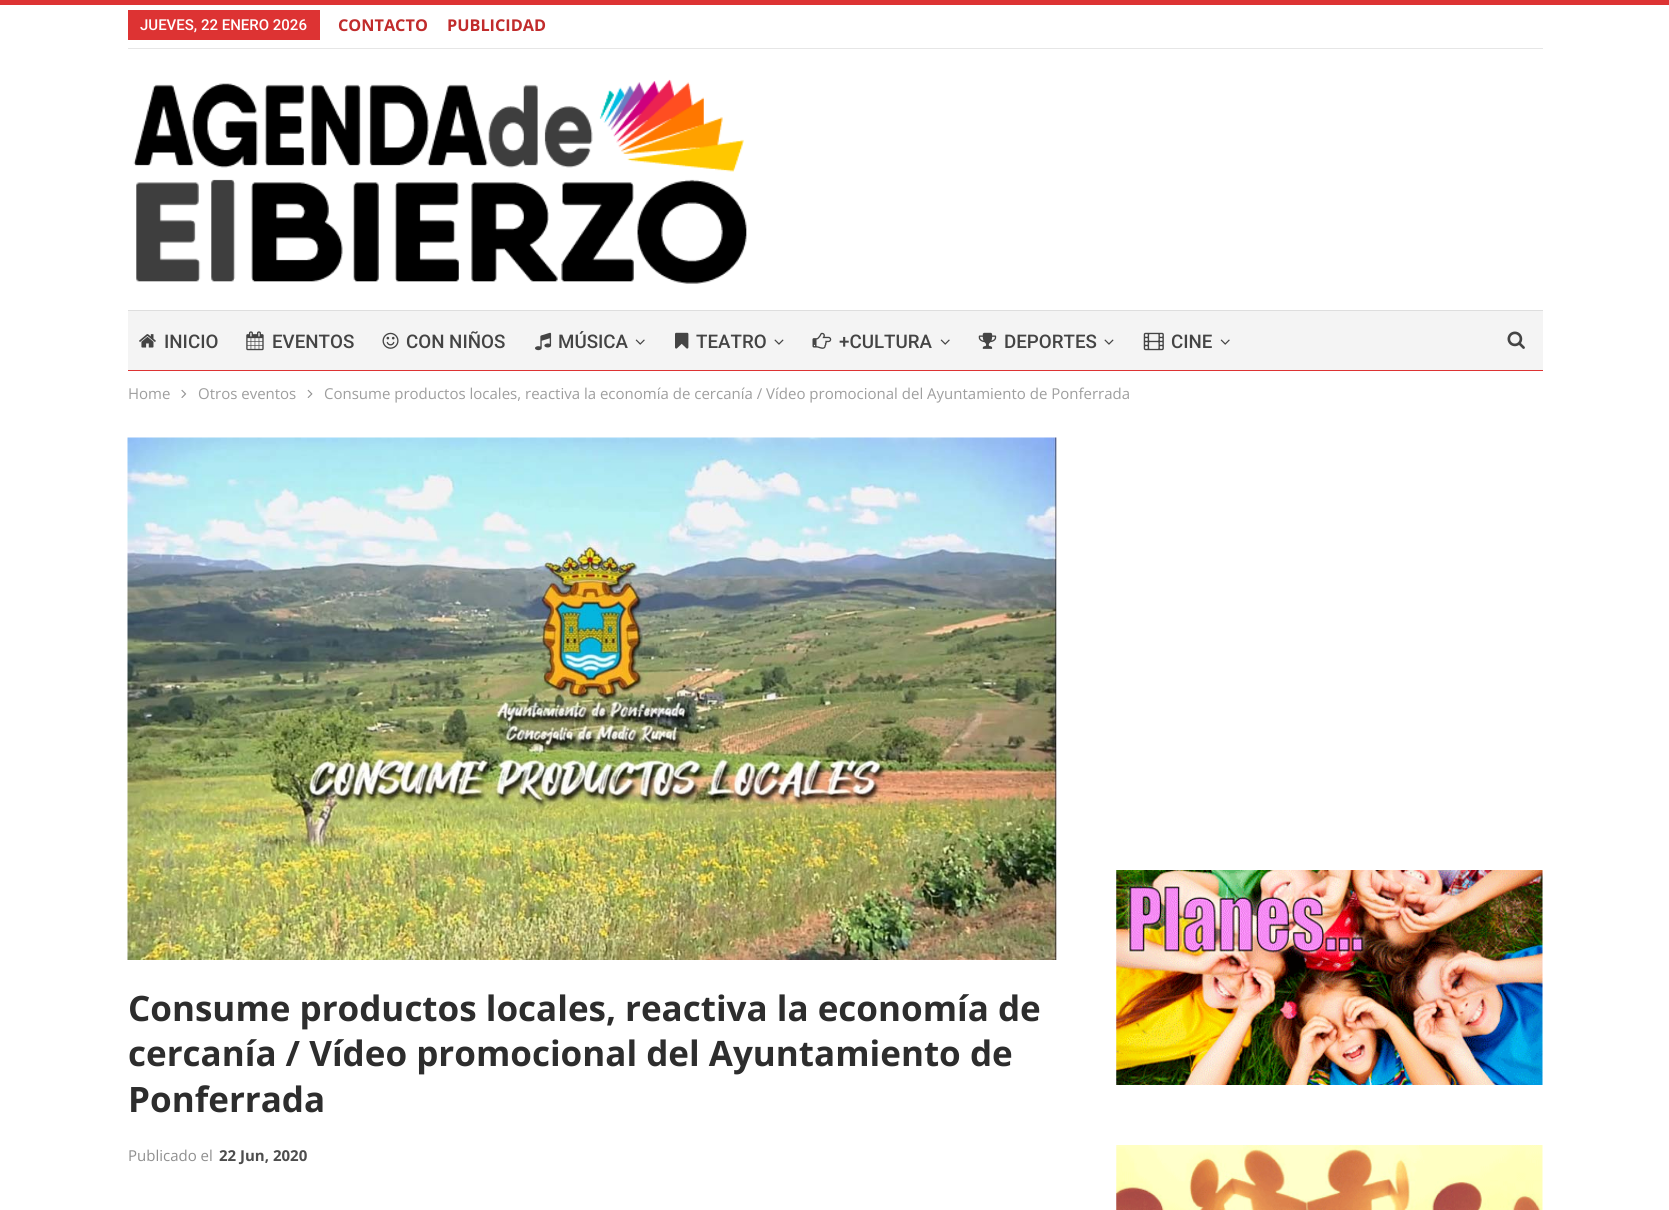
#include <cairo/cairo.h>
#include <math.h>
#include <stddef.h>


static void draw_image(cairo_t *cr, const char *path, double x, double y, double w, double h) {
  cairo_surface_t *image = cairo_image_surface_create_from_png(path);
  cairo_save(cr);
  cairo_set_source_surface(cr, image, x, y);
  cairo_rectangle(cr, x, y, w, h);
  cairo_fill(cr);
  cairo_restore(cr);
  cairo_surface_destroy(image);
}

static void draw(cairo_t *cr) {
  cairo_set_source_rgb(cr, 1, 1, 1);
  cairo_paint(cr);
  cairo_set_source_rgb(cr, 221 / 255.0, 51 / 255.0, 51 / 255.0);
  cairo_rectangle(cr, 0, 0, 1669, 5);
  cairo_fill(cr);
  cairo_set_source_rgb(cr, 230 / 255.0, 230 / 255.0, 230 / 255.0);
  cairo_rectangle(cr, 128, 48, 1415, 1);
  cairo_fill(cr);
  cairo_set_source_rgb(cr, 221 / 255.0, 51 / 255.0, 51 / 255.0);
  cairo_rectangle(cr, 128, 10, 192, 30);
  cairo_fill(cr);
  draw_image(cr, "images/1.png", 133, 79, 614, 205);
  cairo_set_source_rgb(cr, 244 / 255.0, 244 / 255.0, 244 / 255.0);
  cairo_rectangle(cr, 128, 311, 1415, 59);
  cairo_fill(cr);
  cairo_set_source_rgb(cr, 222 / 255.0, 222 / 255.0, 222 / 255.0);
  cairo_rectangle(cr, 128, 310, 1415, 1);
  cairo_fill(cr);
  cairo_set_source_rgb(cr, 221 / 255.0, 51 / 255.0, 51 / 255.0);
  cairo_rectangle(cr, 128, 370, 1415, 1);
  cairo_fill(cr);
  draw_image(cr, "images/2.png", 139, 334, 17, 14);
  draw_image(cr, "images/3.png", 246, 331, 18, 20);
  draw_image(cr, "images/4.png", 382, 332, 17, 17);
  draw_image(cr, "images/5.png", 535, 332, 17, 19);
  draw_image(cr, "images/6.png", 635, 339, 10, 6);
  draw_image(cr, "images/7.png", 675, 332, 14, 17);
  draw_image(cr, "images/8.png", 774, 339, 10, 6);
  draw_image(cr, "images/9.png", 812, 332, 20, 17);
  draw_image(cr, "images/6.png", 940, 339, 10, 6);
  draw_image(cr, "images/10.png", 978, 332, 19, 17);
  draw_image(cr, "images/8.png", 1104, 339, 10, 6);
  draw_image(cr, "images/11.png", 1143, 332, 21, 19);
  draw_image(cr, "images/6.png", 1220, 339, 10, 6);
  draw_image(cr, "images/12.png", 1507, 331, 18, 18);
  draw_image(cr, "images/13.png", 181, 389, 6, 9);
  draw_image(cr, "images/14.png", 307, 389, 6, 9);
  draw_image(cr, "images/15.png", 127, 437, 930, 523);
  draw_image(cr, "images/16.png", 1116, 870, 427, 215);
  draw_image(cr, "images/17.png", 1116, 1145, 427, 65);
  cairo_select_font_face(cr, "Roboto Medium", CAIRO_FONT_SLANT_NORMAL, CAIRO_FONT_WEIGHT_NORMAL);
  cairo_set_font_size(cr, 15);
  cairo_set_source_rgb(cr, 1, 1, 1);
  cairo_move_to(cr, 140, 30);
  cairo_show_text(cr, "JUEVES, 22 ENERO 2026");
  cairo_select_font_face(cr, "Open Sans", CAIRO_FONT_SLANT_NORMAL, CAIRO_FONT_WEIGHT_BOLD);
  cairo_set_font_size(cr, 16.25);
  cairo_set_source_rgb(cr, 193 / 255.0, 44 / 255.0, 44 / 255.0);
  cairo_move_to(cr, 338, 31);
  cairo_show_text(cr, "CONTACTO");
  cairo_move_to(cr, 447, 31);
  cairo_show_text(cr, "PUBLICIDAD");
  cairo_select_font_face(cr, "Roboto Medium", CAIRO_FONT_SLANT_NORMAL, CAIRO_FONT_WEIGHT_NORMAL);
  cairo_set_font_size(cr, 18.75);
  cairo_set_source_rgb(cr, 68 / 255.0, 68 / 255.0, 68 / 255.0);
  cairo_move_to(cr, 164, 348);
  cairo_show_text(cr, "INICIO");
  cairo_move_to(cr, 272, 348);
  cairo_show_text(cr, "EVENTOS");
  cairo_move_to(cr, 406, 348);
  cairo_show_text(cr, "CON NIÑOS");
  cairo_move_to(cr, 558, 348);
  cairo_show_text(cr, "MÚSICA");
  cairo_move_to(cr, 696, 348);
  cairo_show_text(cr, "TEATRO");
  cairo_move_to(cr, 839, 348);
  cairo_show_text(cr, "+CULTURA");
  cairo_move_to(cr, 1004, 348);
  cairo_show_text(cr, "DEPORTES");
  cairo_move_to(cr, 1171, 348);
  cairo_show_text(cr, "CINE");
  cairo_select_font_face(cr, "Open Sans", CAIRO_FONT_SLANT_NORMAL, CAIRO_FONT_WEIGHT_NORMAL);
  cairo_set_font_size(cr, 15);
  cairo_set_source_rgb(cr, 158 / 255.0, 158 / 255.0, 158 / 255.0);
  cairo_move_to(cr, 128, 399);
  cairo_show_text(cr, "Home");
  cairo_move_to(cr, 198, 399);
  cairo_show_text(cr, "Otros eventos");
  cairo_move_to(cr, 324, 399);
  cairo_show_text(cr, "Consume productos locales, reactiva la economía de cercanía / Vídeo promocional del Ayuntamiento de Ponferrada");
  cairo_select_font_face(cr, "Open Sans", CAIRO_FONT_SLANT_NORMAL, CAIRO_FONT_WEIGHT_BOLD);
  cairo_set_font_size(cr, 35);
  cairo_set_source_rgb(cr, 45 / 255.0, 45 / 255.0, 45 / 255.0);
  cairo_move_to(cr, 128, 1021);
  cairo_show_text(cr, "Consume productos locales, reactiva la economía de");
  cairo_move_to(cr, 128, 1066);
  cairo_show_text(cr, "cercanía / Vídeo promocional del Ayuntamiento de");
  cairo_move_to(cr, 128, 1112);
  cairo_show_text(cr, "Ponferrada");
  cairo_select_font_face(cr, "Open Sans", CAIRO_FONT_SLANT_NORMAL, CAIRO_FONT_WEIGHT_NORMAL);
  cairo_set_font_size(cr, 15);
  cairo_set_source_rgb(cr, 143 / 255.0, 143 / 255.0, 143 / 255.0);
  cairo_move_to(cr, 128, 1161);
  cairo_show_text(cr, "Publicado el");
  cairo_select_font_face(cr, "Open Sans", CAIRO_FONT_SLANT_NORMAL, CAIRO_FONT_WEIGHT_BOLD);
  cairo_set_source_rgb(cr, 77 / 255.0, 77 / 255.0, 77 / 255.0);
  cairo_move_to(cr, 219, 1161);
  cairo_show_text(cr, "22 Jun, 2020");
}

int main(void) {
  cairo_surface_t *surface = cairo_image_surface_create(CAIRO_FORMAT_RGB24, 1669, 1210);
  cairo_t *cr = cairo_create(surface);
  cairo_font_options_t *options = cairo_font_options_create();
  cairo_font_options_set_hint_metrics(options, CAIRO_HINT_METRICS_OFF);
  cairo_font_options_set_hint_style(options, CAIRO_HINT_STYLE_NONE);
  cairo_set_font_options(cr, options);
  cairo_set_miter_limit(cr, 4);
  draw(cr);
  cairo_surface_write_to_png(surface, "out.png");
  cairo_font_options_destroy(options);
  cairo_destroy(cr);
  cairo_surface_destroy(surface);
  return 0;
}
